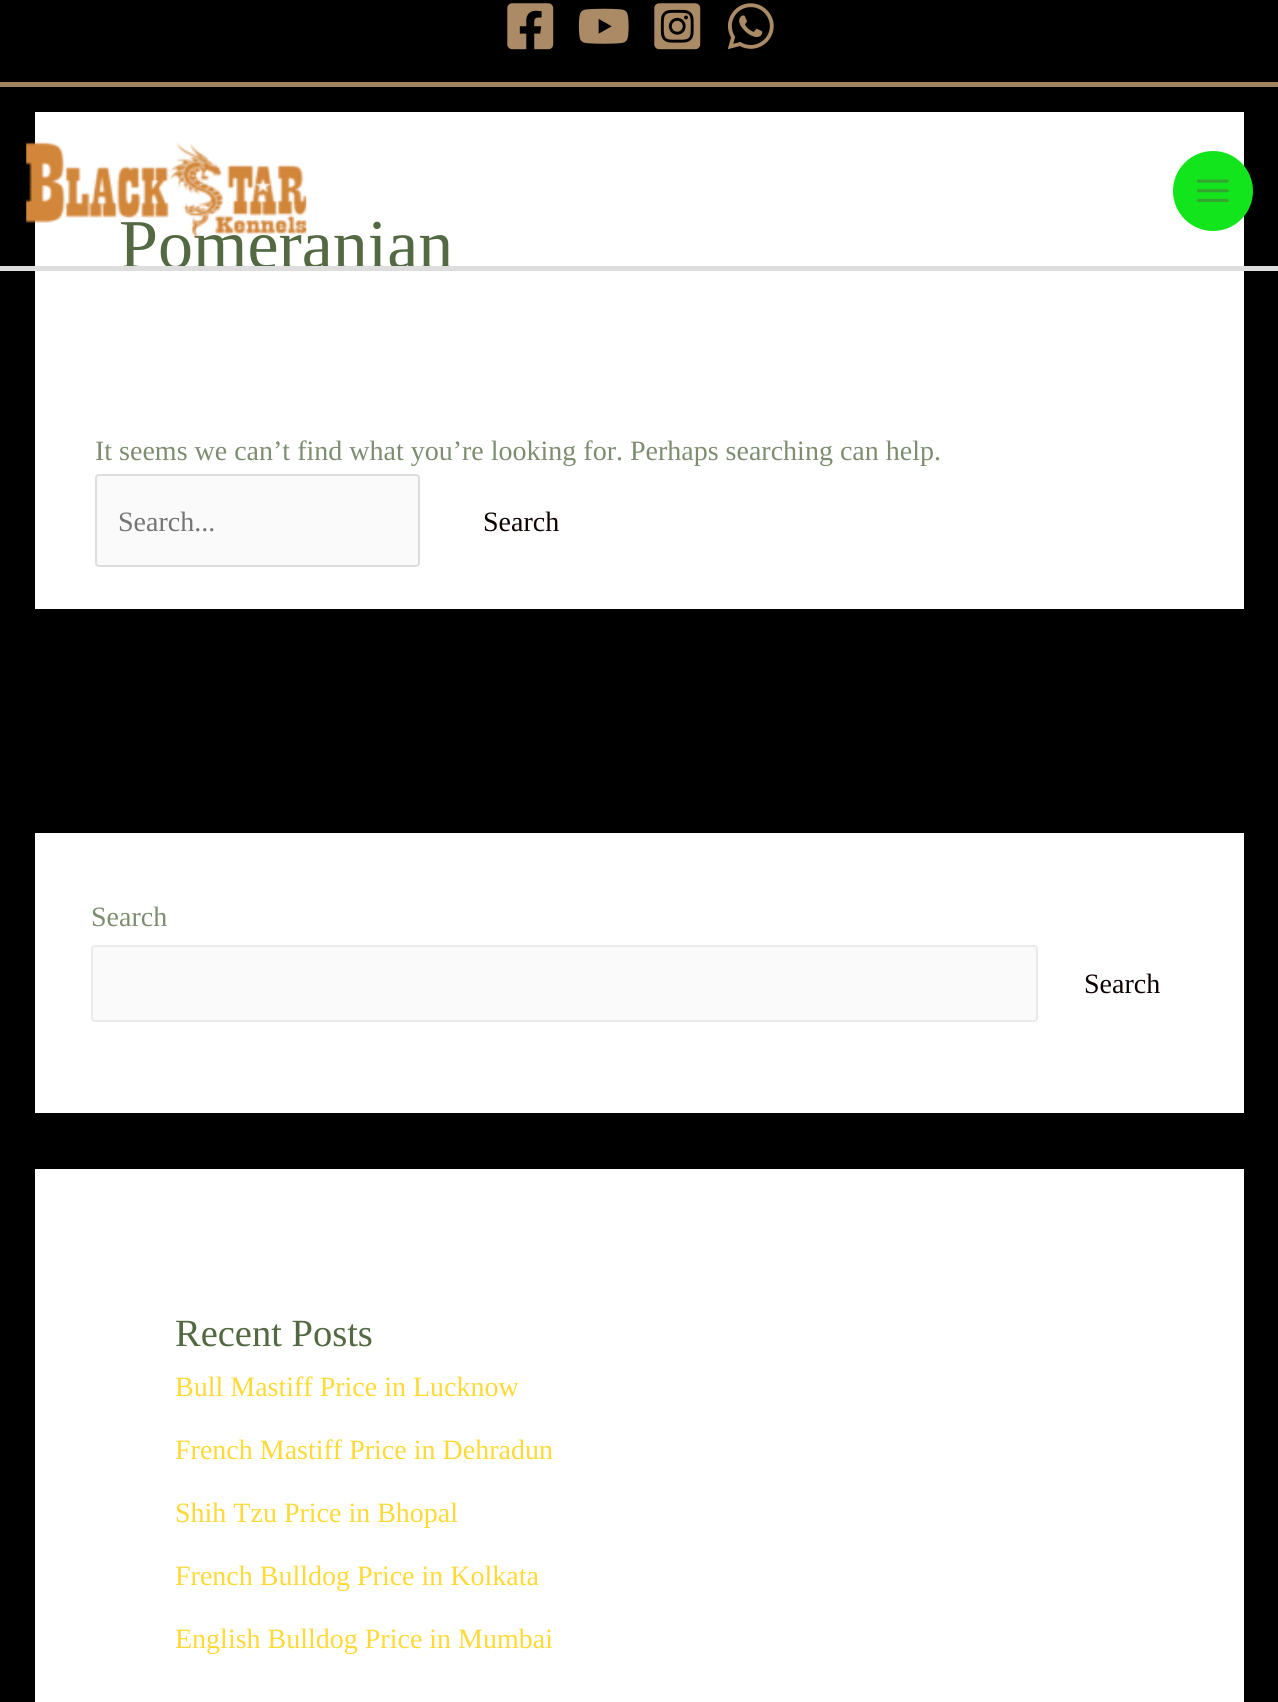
#include <cairo/cairo.h>
#include <math.h>
#include <stddef.h>


static void rounded_rect(cairo_t *cr, double x, double y, double w, double h, double r) {
  cairo_new_sub_path(cr);
  cairo_arc(cr, x + w - r, y + h - r, r, 0, M_PI / 2);
  cairo_arc(cr, x + r, y + h - r, r, M_PI / 2, M_PI);
  cairo_arc(cr, x + r, y + r, r, M_PI, 1.5 * M_PI);
  cairo_arc(cr, x + w - r, y + r, r, 1.5 * M_PI, 2 * M_PI);
  cairo_close_path(cr);
}

static void draw_image(cairo_t *cr, const char *path, double x, double y, double w, double h) {
  cairo_surface_t *image = cairo_image_surface_create_from_png(path);
  cairo_save(cr);
  cairo_set_source_surface(cr, image, x, y);
  cairo_rectangle(cr, x, y, w, h);
  cairo_fill(cr);
  cairo_restore(cr);
  cairo_surface_destroy(image);
}

static void draw(cairo_t *cr) {
  cairo_set_source_rgb(cr, 1 / 255.0, 0, 0);
  cairo_paint(cr);
  cairo_set_source_rgb(cr, 164 / 255.0, 133 / 255.0, 97 / 255.0);
  cairo_rectangle(cr, 0, 82, 1278, 5);
  cairo_fill(cr);
  draw_image(cr, "images/1.png", 507, 3, 47, 47);
  draw_image(cr, "images/2.png", 578, 8, 51, 36);
  draw_image(cr, "images/3.png", 654, 3, 47, 47);
  draw_image(cr, "images/4.png", 727, 3, 47, 47);
  cairo_set_source_rgb(cr, 1, 1, 1);
  cairo_rectangle(cr, 35, 112, 1209, 497);
  cairo_fill(cr);
  cairo_set_source_rgb(cr, 19 / 255.0, 229 / 255.0, 29 / 255.0);
  cairo_arc(cr, 1213, 191, 40, 0, 2 * M_PI);
  cairo_fill(cr);
  draw_image(cr, "images/6.png", 1196, 179, 33, 23);
  cairo_set_source_rgb(cr, 250 / 255.0, 250 / 255.0, 250 / 255.0);
  rounded_rect(cr, 96, 475, 323, 91, 3);
  cairo_fill_preserve(cr);
  cairo_set_source_rgb(cr, 221 / 255.0, 221 / 255.0, 221 / 255.0);
  cairo_stroke(cr);
  cairo_set_source_rgb(cr, 1, 1, 1);
  cairo_rectangle(cr, 35, 833, 1209, 280);
  cairo_fill(cr);
  cairo_set_source_rgb(cr, 250 / 255.0, 250 / 255.0, 250 / 255.0);
  rounded_rect(cr, 92, 946, 945, 75, 3);
  cairo_fill_preserve(cr);
  cairo_set_source_rgb(cr, 234 / 255.0, 234 / 255.0, 234 / 255.0);
  cairo_stroke(cr);
  cairo_set_source_rgb(cr, 1, 1, 1);
  cairo_rectangle(cr, 35, 1169, 1209, 533);
  cairo_fill(cr);
  cairo_select_font_face(cr, "Liberation Serif", CAIRO_FONT_SLANT_NORMAL, CAIRO_FONT_WEIGHT_NORMAL);
  cairo_set_font_size(cr, 70);
  cairo_set_source_rgb(cr, 83 / 255.0, 105 / 255.0, 66 / 255.0);
  cairo_move_to(cr, 119, 268);
  cairo_show_text(cr, "Pomeranian");
  draw_image(cr, "images/5.png", 26, 141, 281, 97);
  cairo_set_source_rgb(cr, 221 / 255.0, 221 / 255.0, 221 / 255.0);
  cairo_rectangle(cr, 0, 266, 1278, 5);
  cairo_fill(cr);
  cairo_set_font_size(cr, 28);
  cairo_set_source_rgb(cr, 125 / 255.0, 142 / 255.0, 112 / 255.0);
  cairo_move_to(cr, 95, 460);
  cairo_show_text(cr, "It seems we can’t find what you’re looking for. Perhaps searching can help.");
  cairo_set_source_rgb(cr, 117 / 255.0, 117 / 255.0, 117 / 255.0);
  cairo_move_to(cr, 118, 531);
  cairo_show_text(cr, "Search...");
  cairo_set_source_rgb(cr, 14 / 255.0, 1 / 255.0, 1 / 255.0);
  cairo_move_to(cr, 483, 531);
  cairo_show_text(cr, "Search");
  cairo_set_source_rgb(cr, 125 / 255.0, 142 / 255.0, 112 / 255.0);
  cairo_move_to(cr, 91, 926);
  cairo_show_text(cr, "Search");
  cairo_set_source_rgb(cr, 14 / 255.0, 1 / 255.0, 1 / 255.0);
  cairo_move_to(cr, 1084, 993);
  cairo_show_text(cr, "Search");
  cairo_set_font_size(cr, 38.5);
  cairo_set_source_rgb(cr, 83 / 255.0, 105 / 255.0, 66 / 255.0);
  cairo_move_to(cr, 175, 1346);
  cairo_show_text(cr, "Recent Posts");
  cairo_set_font_size(cr, 28);
  cairo_set_source_rgb(cr, 1, 217 / 255.0, 54 / 255.0);
  cairo_move_to(cr, 175, 1396);
  cairo_show_text(cr, "Bull Mastiff Price in Lucknow");
  cairo_move_to(cr, 175, 1459);
  cairo_show_text(cr, "French Mastiff Price in Dehradun");
  cairo_move_to(cr, 175, 1522);
  cairo_show_text(cr, "Shih Tzu Price in Bhopal");
  cairo_move_to(cr, 175, 1585);
  cairo_show_text(cr, "French Bulldog Price in Kolkata");
  cairo_move_to(cr, 175, 1648);
  cairo_show_text(cr, "English Bulldog Price in Mumbai");
}

int main(void) {
  cairo_surface_t *surface = cairo_image_surface_create(CAIRO_FORMAT_RGB24, 1278, 1702);
  cairo_t *cr = cairo_create(surface);
  cairo_font_options_t *options = cairo_font_options_create();
  cairo_font_options_set_hint_metrics(options, CAIRO_HINT_METRICS_OFF);
  cairo_font_options_set_hint_style(options, CAIRO_HINT_STYLE_NONE);
  cairo_set_font_options(cr, options);
  cairo_set_miter_limit(cr, 4);
  draw(cr);
  cairo_surface_write_to_png(surface, "out.png");
  cairo_font_options_destroy(options);
  cairo_destroy(cr);
  cairo_surface_destroy(surface);
  return 0;
}
